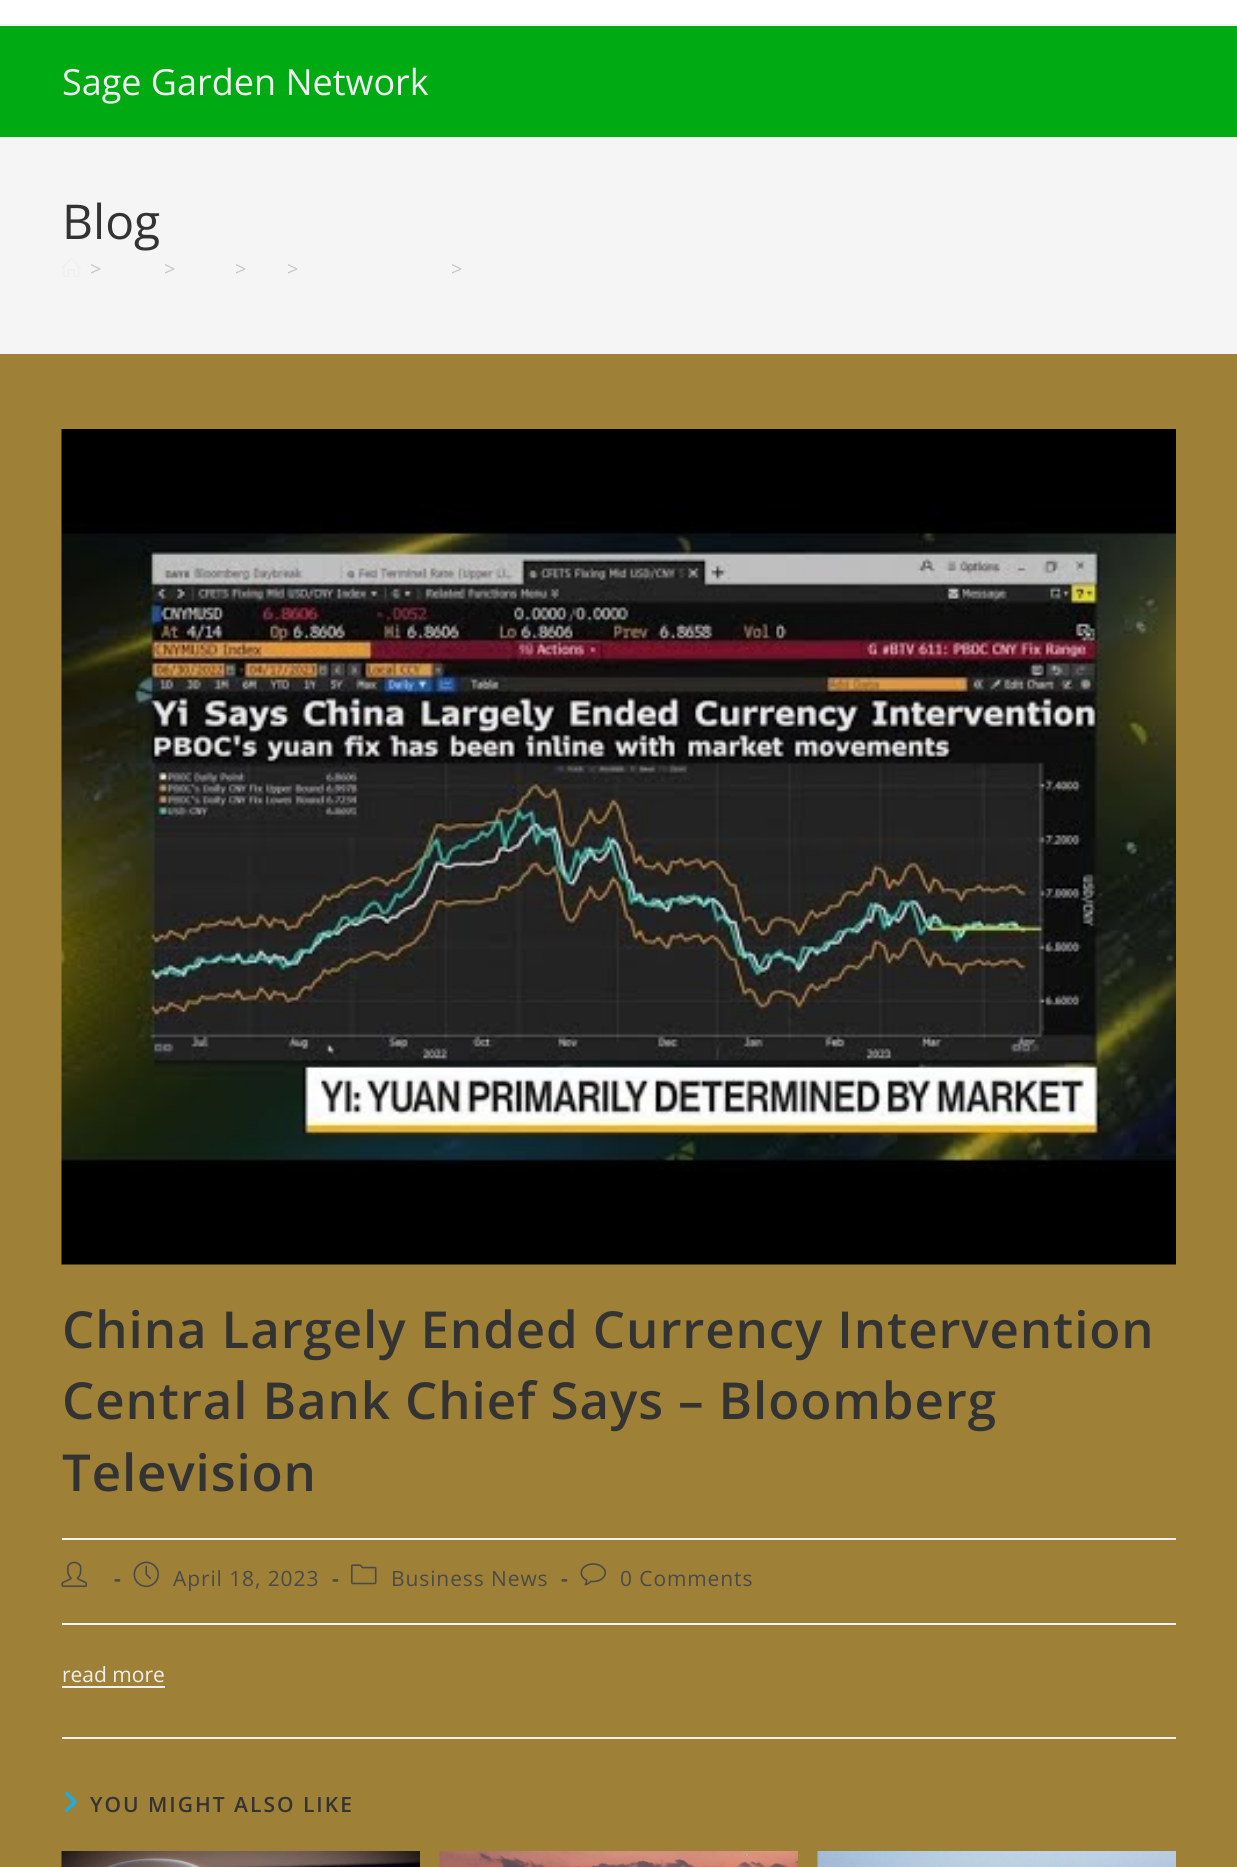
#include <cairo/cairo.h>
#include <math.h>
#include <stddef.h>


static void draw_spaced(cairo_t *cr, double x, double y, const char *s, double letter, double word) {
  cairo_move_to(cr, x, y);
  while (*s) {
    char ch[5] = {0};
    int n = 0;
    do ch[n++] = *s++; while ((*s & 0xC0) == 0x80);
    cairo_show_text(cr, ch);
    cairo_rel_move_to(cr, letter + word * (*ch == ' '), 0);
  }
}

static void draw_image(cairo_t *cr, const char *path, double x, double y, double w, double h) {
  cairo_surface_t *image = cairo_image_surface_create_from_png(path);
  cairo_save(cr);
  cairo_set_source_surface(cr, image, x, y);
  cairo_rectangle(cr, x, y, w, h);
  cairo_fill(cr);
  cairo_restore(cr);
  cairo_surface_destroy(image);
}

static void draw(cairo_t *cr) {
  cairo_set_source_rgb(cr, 158 / 255.0, 128 / 255.0, 55 / 255.0);
  cairo_paint(cr);
  cairo_set_source_rgb(cr, 1, 1, 1);
  cairo_rectangle(cr, 0, 0, 1237, 24);
  cairo_fill(cr);
  cairo_set_source_rgb(cr, 241 / 255.0, 241 / 255.0, 241 / 255.0);
  cairo_rectangle(cr, 0, 24, 1237, 2);
  cairo_fill(cr);
  cairo_set_source_rgb(cr, 0, 170 / 255.0, 19 / 255.0);
  cairo_rectangle(cr, 0, 26, 1237, 111);
  cairo_fill(cr);
  cairo_set_source_rgb(cr, 245 / 255.0, 245 / 255.0, 245 / 255.0);
  cairo_rectangle(cr, 0, 137, 1237, 217);
  cairo_fill(cr);
  draw_image(cr, "images/1.png", 62, 258, 19, 19);
  draw_image(cr, "images/2.png", 61, 429, 1115, 836);
  cairo_set_source_rgb(cr, 241 / 255.0, 241 / 255.0, 241 / 255.0);
  cairo_rectangle(cr, 62, 1538, 1114, 2);
  cairo_fill(cr);
  cairo_rectangle(cr, 62, 1623, 1114, 2);
  cairo_fill(cr);
  draw_image(cr, "images/3.png", 61, 1561, 26, 27);
  draw_image(cr, "images/4.png", 133, 1561, 26, 27);
  draw_image(cr, "images/5.png", 351, 1564, 26, 21);
  draw_image(cr, "images/6.png", 580, 1563, 26, 23);
  cairo_set_source_rgb(cr, 239 / 255.0, 239 / 255.0, 239 / 255.0);
  cairo_rectangle(cr, 62, 1686, 103, 2);
  cairo_fill(cr);
  cairo_set_source_rgb(cr, 241 / 255.0, 241 / 255.0, 241 / 255.0);
  cairo_rectangle(cr, 62, 1737, 1114, 2);
  cairo_fill(cr);
  draw_image(cr, "images/7.png", 64, 1791, 13, 21);
  draw_image(cr, "images/8.png", 61, 1851, 359, 16);
  draw_image(cr, "images/9.png", 439, 1851, 359, 16);
  draw_image(cr, "images/10.png", 817, 1851, 359, 16);
  cairo_select_font_face(cr, "Open Sans", CAIRO_FONT_SLANT_NORMAL, CAIRO_FONT_WEIGHT_NORMAL);
  cairo_set_font_size(cr, 36);
  cairo_set_source_rgb(cr, 239 / 255.0, 239 / 255.0, 239 / 255.0);
  cairo_move_to(cr, 62, 95);
  cairo_show_text(cr, "Sage Garden Network");
  cairo_set_font_size(cr, 48);
  cairo_set_source_rgb(cr, 51 / 255.0, 51 / 255.0, 51 / 255.0);
  cairo_move_to(cr, 62, 239);
  cairo_show_text(cr, "Blog");
  cairo_set_font_size(cr, 20);
  cairo_set_source_rgb(cr, 198 / 255.0, 198 / 255.0, 198 / 255.0);
  cairo_move_to(cr, 90, 276);
  cairo_show_text(cr, ">");
  cairo_move_to(cr, 164, 276);
  cairo_show_text(cr, ">");
  cairo_move_to(cr, 235, 276);
  cairo_show_text(cr, ">");
  cairo_move_to(cr, 287, 276);
  cairo_show_text(cr, ">");
  cairo_move_to(cr, 451, 276);
  cairo_show_text(cr, ">");
  cairo_select_font_face(cr, "Open Sans SemiBold", CAIRO_FONT_SLANT_NORMAL, CAIRO_FONT_WEIGHT_NORMAL);
  cairo_set_font_size(cr, 51);
  cairo_set_source_rgb(cr, 51 / 255.0, 51 / 255.0, 51 / 255.0);
  draw_spaced(cr, 62, 1348, "China Largely Ended Currency Intervention", 0.9, 0);
  draw_spaced(cr, 62, 1419, "Central Bank Chief Says – Bloomberg", 0.9, 0);
  draw_spaced(cr, 62, 1491, "Television", 0.9, 0);
  cairo_select_font_face(cr, "Open Sans", CAIRO_FONT_SLANT_NORMAL, CAIRO_FONT_WEIGHT_BOLD);
  cairo_set_font_size(cr, 21);
  cairo_set_source_rgb(cr, 74 / 255.0, 74 / 255.0, 74 / 255.0);
  draw_spaced(cr, 114, 1586, "-", 0.9, 0);
  cairo_select_font_face(cr, "Open Sans", CAIRO_FONT_SLANT_NORMAL, CAIRO_FONT_WEIGHT_NORMAL);
  draw_spaced(cr, 173, 1586, "April 18, 2023", 0.9, 0);
  cairo_select_font_face(cr, "Open Sans", CAIRO_FONT_SLANT_NORMAL, CAIRO_FONT_WEIGHT_BOLD);
  draw_spaced(cr, 332, 1586, "-", 0.9, 0);
  cairo_select_font_face(cr, "Open Sans", CAIRO_FONT_SLANT_NORMAL, CAIRO_FONT_WEIGHT_NORMAL);
  draw_spaced(cr, 391, 1586, "Business News", 0.9, 0);
  cairo_select_font_face(cr, "Open Sans", CAIRO_FONT_SLANT_NORMAL, CAIRO_FONT_WEIGHT_BOLD);
  draw_spaced(cr, 561, 1586, "-", 0.9, 0);
  cairo_select_font_face(cr, "Open Sans", CAIRO_FONT_SLANT_NORMAL, CAIRO_FONT_WEIGHT_NORMAL);
  draw_spaced(cr, 620, 1586, "0 Comments", 0.9, 0);
  cairo_set_source_rgb(cr, 239 / 255.0, 239 / 255.0, 239 / 255.0);
  cairo_move_to(cr, 62, 1682);
  cairo_show_text(cr, "read more");
  cairo_select_font_face(cr, "Open Sans SemiBold", CAIRO_FONT_SLANT_NORMAL, CAIRO_FONT_WEIGHT_NORMAL);
  cairo_set_source_rgb(cr, 51 / 255.0, 51 / 255.0, 51 / 255.0);
  draw_spaced(cr, 90, 1812, "YOU MIGHT ALSO LIKE", 2, 0);
}

int main(void) {
  cairo_surface_t *surface = cairo_image_surface_create(CAIRO_FORMAT_RGB24, 1237, 1867);
  cairo_t *cr = cairo_create(surface);
  cairo_font_options_t *options = cairo_font_options_create();
  cairo_font_options_set_hint_metrics(options, CAIRO_HINT_METRICS_OFF);
  cairo_font_options_set_hint_style(options, CAIRO_HINT_STYLE_NONE);
  cairo_set_font_options(cr, options);
  cairo_set_miter_limit(cr, 4);
  draw(cr);
  cairo_surface_write_to_png(surface, "out.png");
  cairo_font_options_destroy(options);
  cairo_destroy(cr);
  cairo_surface_destroy(surface);
  return 0;
}
